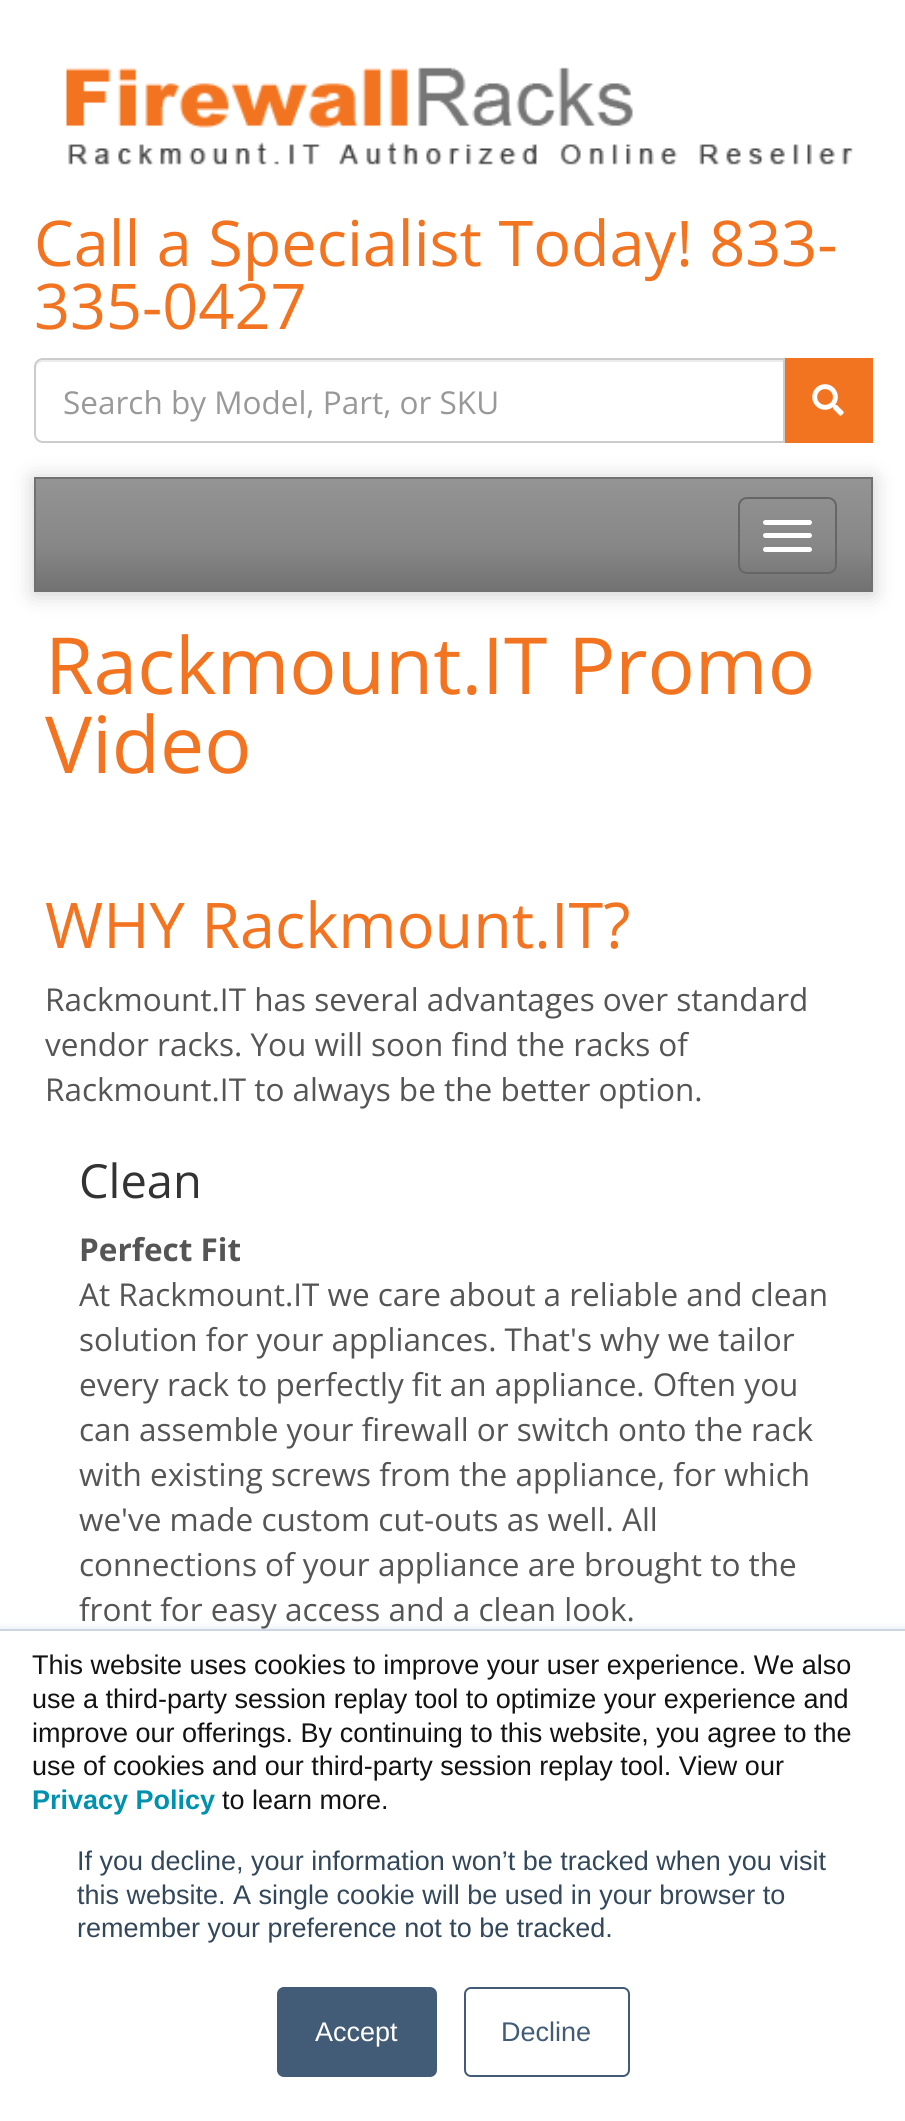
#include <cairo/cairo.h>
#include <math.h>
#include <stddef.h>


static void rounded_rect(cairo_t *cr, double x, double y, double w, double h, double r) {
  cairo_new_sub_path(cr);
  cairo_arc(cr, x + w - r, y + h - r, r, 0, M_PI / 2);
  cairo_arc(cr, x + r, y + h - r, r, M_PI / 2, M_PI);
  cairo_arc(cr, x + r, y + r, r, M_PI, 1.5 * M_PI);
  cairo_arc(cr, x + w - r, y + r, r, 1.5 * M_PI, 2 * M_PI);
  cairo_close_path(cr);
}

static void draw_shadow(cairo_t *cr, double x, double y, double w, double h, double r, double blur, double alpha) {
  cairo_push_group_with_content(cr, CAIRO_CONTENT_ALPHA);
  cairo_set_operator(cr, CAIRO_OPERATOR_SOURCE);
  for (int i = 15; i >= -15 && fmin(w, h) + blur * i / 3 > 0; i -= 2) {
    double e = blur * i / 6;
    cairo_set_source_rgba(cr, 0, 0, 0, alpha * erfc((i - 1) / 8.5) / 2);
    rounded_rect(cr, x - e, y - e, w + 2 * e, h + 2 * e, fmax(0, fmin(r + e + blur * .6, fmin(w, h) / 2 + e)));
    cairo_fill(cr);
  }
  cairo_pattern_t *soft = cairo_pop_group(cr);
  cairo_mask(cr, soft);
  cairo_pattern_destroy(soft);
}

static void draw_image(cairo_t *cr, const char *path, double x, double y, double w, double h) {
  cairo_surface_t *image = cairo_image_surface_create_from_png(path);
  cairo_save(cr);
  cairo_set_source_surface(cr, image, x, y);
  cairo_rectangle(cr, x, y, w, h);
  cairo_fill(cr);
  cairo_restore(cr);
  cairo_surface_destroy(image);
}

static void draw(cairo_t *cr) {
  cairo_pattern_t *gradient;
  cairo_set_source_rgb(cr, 1, 1, 1);
  cairo_paint(cr);
  draw_image(cr, "images/1.png", 66, 67, 787, 98);
  cairo_set_source_rgb(cr, 236 / 255.0, 236 / 255.0, 236 / 255.0);
  cairo_new_path(cr);
  cairo_move_to(cr, 43, 362);
  cairo_line_to(cr, 783, 362);
  cairo_line_to(cr, 783, 360);
  cairo_line_to(cr, 43, 360);
  cairo_curve_to(cr, 39, 360, 36, 363, 36, 367);
  cairo_line_to(cr, 36, 369);
  cairo_curve_to(cr, 36, 365, 39, 362, 43, 362);
  cairo_close_path(cr);
  cairo_fill(cr);
  cairo_new_path(cr);
  cairo_move_to(cr, 43, 359);
  cairo_line_to(cr, 784, 359);
  cairo_line_to(cr, 784, 442);
  cairo_line_to(cr, 43, 442);
  cairo_curve_to(cr, 38.5, 442, 35, 438.5, 35, 434);
  cairo_line_to(cr, 35, 367);
  cairo_curve_to(cr, 35, 362.5, 38.5, 359, 43, 359);
  cairo_close_path(cr);
  cairo_set_source_rgb(cr, 204 / 255.0, 204 / 255.0, 204 / 255.0);
  cairo_stroke(cr);
  cairo_set_source_rgb(cr, 242 / 255.0, 116 / 255.0, 32 / 255.0);
  cairo_rectangle(cr, 785, 358, 88, 85);
  cairo_fill(cr);
  draw_image(cr, "images/2.png", 812, 384, 32, 32);
  cairo_set_source_rgb(cr, 0, 0, 0);
  draw_shadow(cr, 34, 479, 839, 115, 0, 11, 0.2);
  gradient = cairo_pattern_create_linear(453, 479, 453, 592);
  cairo_pattern_add_color_stop_rgba(gradient, 0, 148 / 255.0, 148 / 255.0, 148 / 255.0, 1);
  cairo_pattern_add_color_stop_rgba(gradient, 0.6, 135 / 255.0, 135 / 255.0, 135 / 255.0, 1);
  cairo_pattern_add_color_stop_rgba(gradient, 1, 113 / 255.0, 113 / 255.0, 113 / 255.0, 1);
  cairo_set_source(cr, gradient);
  cairo_pattern_destroy(gradient);
  cairo_rectangle(cr, 36, 479, 835, 113);
  cairo_fill(cr);
  cairo_set_source_rgb(cr, 113 / 255.0, 113 / 255.0, 113 / 255.0);
  cairo_rectangle(cr, 34, 477, 839, 2);
  cairo_fill(cr);
  cairo_rectangle(cr, 871, 477, 2, 115);
  cairo_fill(cr);
  cairo_rectangle(cr, 34, 477, 2, 115);
  cairo_fill(cr);
  rounded_rect(cr, 739, 498, 97, 75, 8);
  cairo_set_source_rgb(cr, 102 / 255.0, 102 / 255.0, 102 / 255.0);
  cairo_stroke(cr);
  cairo_set_source_rgb(cr, 1, 1, 1);
  rounded_rect(cr, 763, 520, 49, 5, 2.5);
  cairo_fill(cr);
  rounded_rect(cr, 763, 533, 49, 5, 2.5);
  cairo_fill(cr);
  rounded_rect(cr, 763, 547, 49, 5, 2.5);
  cairo_fill(cr);
  cairo_set_source_rgb(cr, 234 / 255.0, 240 / 255.0, 246 / 255.0);
  draw_shadow(cr, 0, 1627, 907, 493, 0, 3.5, 1);
  cairo_set_source_rgb(cr, 1, 1, 1);
  cairo_rectangle(cr, 0, 1631, 905, 490);
  cairo_fill(cr);
  cairo_set_source_rgb(cr, 203 / 255.0, 214 / 255.0, 226 / 255.0);
  cairo_rectangle(cr, 0, 1629, 905, 2);
  cairo_fill(cr);
  cairo_set_source_rgb(cr, 66 / 255.0, 91 / 255.0, 118 / 255.0);
  rounded_rect(cr, 278, 1988, 158, 88, 6);
  cairo_fill_preserve(cr);
  cairo_stroke(cr);
  rounded_rect(cr, 465, 1988, 164, 88, 6);
  cairo_stroke(cr);
  cairo_select_font_face(cr, "Open Sans", CAIRO_FONT_SLANT_NORMAL, CAIRO_FONT_WEIGHT_NORMAL);
  cairo_set_font_size(cr, 63);
  cairo_set_source_rgb(cr, 242 / 255.0, 116 / 255.0, 32 / 255.0);
  cairo_move_to(cr, 34, 266);
  cairo_show_text(cr, "Call a Specialist Today! 833-");
  cairo_move_to(cr, 34, 329);
  cairo_show_text(cr, "335-0427");
  cairo_set_font_size(cr, 31.5);
  cairo_set_source_rgb(cr, 153 / 255.0, 153 / 255.0, 153 / 255.0);
  cairo_move_to(cr, 63, 414);
  cairo_show_text(cr, "Search by Model, Part, or SKU");
  cairo_set_font_size(cr, 78.75);
  cairo_set_source_rgb(cr, 242 / 255.0, 116 / 255.0, 32 / 255.0);
  cairo_move_to(cr, 45, 694);
  cairo_show_text(cr, "Rackmount.IT Promo");
  cairo_move_to(cr, 45, 773);
  cairo_show_text(cr, "Video");
  cairo_set_font_size(cr, 63);
  cairo_move_to(cr, 45, 948);
  cairo_show_text(cr, "WHY Rackmount.IT?");
  cairo_set_font_size(cr, 31.5);
  cairo_set_source_rgb(cr, 85 / 255.0, 85 / 255.0, 85 / 255.0);
  cairo_move_to(cr, 45, 1011);
  cairo_show_text(cr, "Rackmount.IT has several advantages over standard");
  cairo_move_to(cr, 45, 1056);
  cairo_show_text(cr, "vendor racks. You will soon find the racks of");
  cairo_move_to(cr, 45, 1101);
  cairo_show_text(cr, "Rackmount.IT to always be the better option.");
  cairo_set_font_size(cr, 47);
  cairo_set_source_rgb(cr, 51 / 255.0, 51 / 255.0, 51 / 255.0);
  cairo_move_to(cr, 79, 1198);
  cairo_show_text(cr, "Clean");
  cairo_select_font_face(cr, "Open Sans", CAIRO_FONT_SLANT_NORMAL, CAIRO_FONT_WEIGHT_BOLD);
  cairo_set_font_size(cr, 31.5);
  cairo_set_source_rgb(cr, 85 / 255.0, 85 / 255.0, 85 / 255.0);
  cairo_move_to(cr, 79, 1261);
  cairo_show_text(cr, "Perfect Fit");
  cairo_select_font_face(cr, "Open Sans", CAIRO_FONT_SLANT_NORMAL, CAIRO_FONT_WEIGHT_NORMAL);
  cairo_move_to(cr, 79, 1306);
  cairo_show_text(cr, "At Rackmount.IT we care about a reliable and clean");
  cairo_move_to(cr, 79, 1351);
  cairo_show_text(cr, "solution for your appliances. That's why we tailor");
  cairo_move_to(cr, 79, 1396);
  cairo_show_text(cr, "every rack to perfectly fit an appliance. Often you");
  cairo_move_to(cr, 79, 1441);
  cairo_show_text(cr, "can assemble your firewall or switch onto the rack");
  cairo_move_to(cr, 79, 1486);
  cairo_show_text(cr, "with existing screws from the appliance, for which");
  cairo_move_to(cr, 79, 1531);
  cairo_show_text(cr, "we've made custom cut-outs as well. All");
  cairo_move_to(cr, 79, 1576);
  cairo_show_text(cr, "connections of your appliance are brought to the");
  cairo_move_to(cr, 79, 1621);
  cairo_show_text(cr, "front for easy access and a clean look.");
  cairo_select_font_face(cr, "Liberation Sans", CAIRO_FONT_SLANT_NORMAL, CAIRO_FONT_WEIGHT_NORMAL);
  cairo_set_font_size(cr, 27);
  cairo_set_source_rgb(cr, 18 / 255.0, 18 / 255.0, 18 / 255.0);
  cairo_move_to(cr, 32, 1674);
  cairo_show_text(cr, "This website uses cookies to improve your user experience. We also");
  cairo_move_to(cr, 32, 1708);
  cairo_show_text(cr, "use a third-party session replay tool to optimize your experience and");
  cairo_move_to(cr, 32, 1742);
  cairo_show_text(cr, "improve our offerings. By continuing to this website, you agree to the");
  cairo_move_to(cr, 32, 1775);
  cairo_show_text(cr, "use of cookies and our third-party session replay tool. View our");
  cairo_select_font_face(cr, "Liberation Sans", CAIRO_FONT_SLANT_NORMAL, CAIRO_FONT_WEIGHT_BOLD);
  cairo_set_source_rgb(cr, 0, 145 / 255.0, 174 / 255.0);
  cairo_move_to(cr, 32, 1809);
  cairo_show_text(cr, "Privacy Policy");
  cairo_select_font_face(cr, "Liberation Sans", CAIRO_FONT_SLANT_NORMAL, CAIRO_FONT_WEIGHT_NORMAL);
  cairo_set_source_rgb(cr, 18 / 255.0, 18 / 255.0, 18 / 255.0);
  cairo_move_to(cr, 222, 1809);
  cairo_show_text(cr, "to learn more.");
  cairo_set_source_rgb(cr, 51 / 255.0, 71 / 255.0, 91 / 255.0);
  cairo_move_to(cr, 77, 1870);
  cairo_show_text(cr, "If you decline, your information won’t be tracked when you visit");
  cairo_move_to(cr, 77, 1904);
  cairo_show_text(cr, "this website. A single cookie will be used in your browser to");
  cairo_move_to(cr, 77, 1937);
  cairo_show_text(cr, "remember your preference not to be tracked.");
  cairo_set_source_rgb(cr, 1, 1, 1);
  cairo_move_to(cr, 315, 2041);
  cairo_show_text(cr, "Accept");
  cairo_set_source_rgb(cr, 66 / 255.0, 91 / 255.0, 118 / 255.0);
  cairo_move_to(cr, 501, 2041);
  cairo_show_text(cr, "Decline");
}

int main(void) {
  cairo_surface_t *surface = cairo_image_surface_create(CAIRO_FORMAT_RGB24, 905, 2121);
  cairo_t *cr = cairo_create(surface);
  cairo_font_options_t *options = cairo_font_options_create();
  cairo_font_options_set_hint_metrics(options, CAIRO_HINT_METRICS_OFF);
  cairo_font_options_set_hint_style(options, CAIRO_HINT_STYLE_NONE);
  cairo_set_font_options(cr, options);
  cairo_set_miter_limit(cr, 4);
  draw(cr);
  cairo_surface_write_to_png(surface, "out.png");
  cairo_font_options_destroy(options);
  cairo_destroy(cr);
  cairo_surface_destroy(surface);
  return 0;
}
